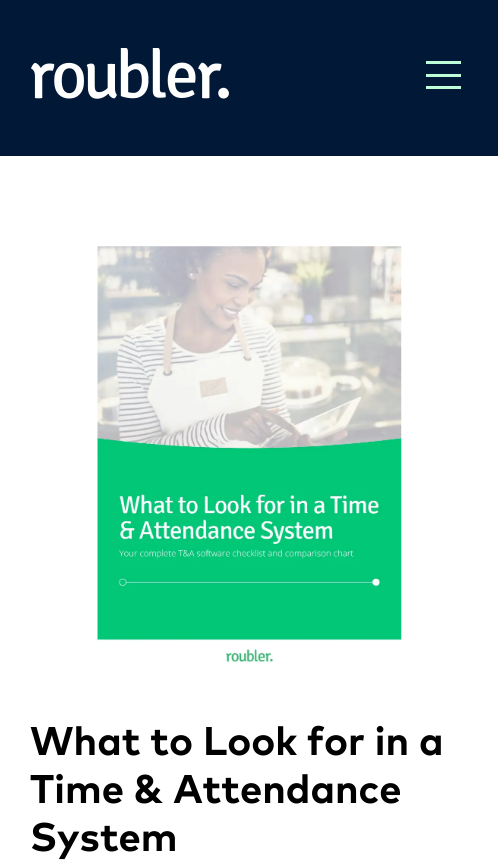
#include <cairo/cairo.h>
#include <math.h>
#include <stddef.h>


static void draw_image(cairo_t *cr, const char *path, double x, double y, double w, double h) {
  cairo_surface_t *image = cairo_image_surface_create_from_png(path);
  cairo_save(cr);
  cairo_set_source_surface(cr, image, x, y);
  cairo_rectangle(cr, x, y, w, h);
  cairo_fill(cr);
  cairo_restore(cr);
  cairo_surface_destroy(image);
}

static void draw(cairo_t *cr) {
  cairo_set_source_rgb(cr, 1, 1, 1);
  cairo_paint(cr);
  cairo_set_source_rgb(cr, 1 / 255.0, 25 / 255.0, 54 / 255.0);
  cairo_rectangle(cr, 0, 0, 498, 156);
  cairo_fill(cr);
  draw_image(cr, "images/1.png", 31, 48, 198, 51);
  cairo_set_source_rgb(cr, 189 / 255.0, 1, 217 / 255.0);
  cairo_rectangle(cr, 426, 61, 35, 3);
  cairo_fill(cr);
  cairo_rectangle(cr, 426, 74, 35, 3);
  cairo_fill(cr);
  cairo_rectangle(cr, 426, 86, 35, 3);
  cairo_fill(cr);
  draw_image(cr, "images/2.png", 97, 246, 305, 417);
  cairo_select_font_face(cr, "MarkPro", CAIRO_FONT_SLANT_NORMAL, CAIRO_FONT_WEIGHT_NORMAL);
  cairo_set_font_size(cr, 40);
  cairo_set_source_rgb(cr, 0, 0, 0);
  cairo_move_to(cr, 30, 755);
  cairo_show_text(cr, "What to Look for in a");
  cairo_move_to(cr, 30, 803);
  cairo_show_text(cr, "Time & Attendance");
  cairo_move_to(cr, 30, 851);
  cairo_show_text(cr, "System");
}

int main(void) {
  cairo_surface_t *surface = cairo_image_surface_create(CAIRO_FORMAT_RGB24, 498, 862);
  cairo_t *cr = cairo_create(surface);
  cairo_font_options_t *options = cairo_font_options_create();
  cairo_font_options_set_hint_metrics(options, CAIRO_HINT_METRICS_OFF);
  cairo_font_options_set_hint_style(options, CAIRO_HINT_STYLE_NONE);
  cairo_set_font_options(cr, options);
  cairo_set_miter_limit(cr, 4);
  draw(cr);
  cairo_surface_write_to_png(surface, "out.png");
  cairo_font_options_destroy(options);
  cairo_destroy(cr);
  cairo_surface_destroy(surface);
  return 0;
}
